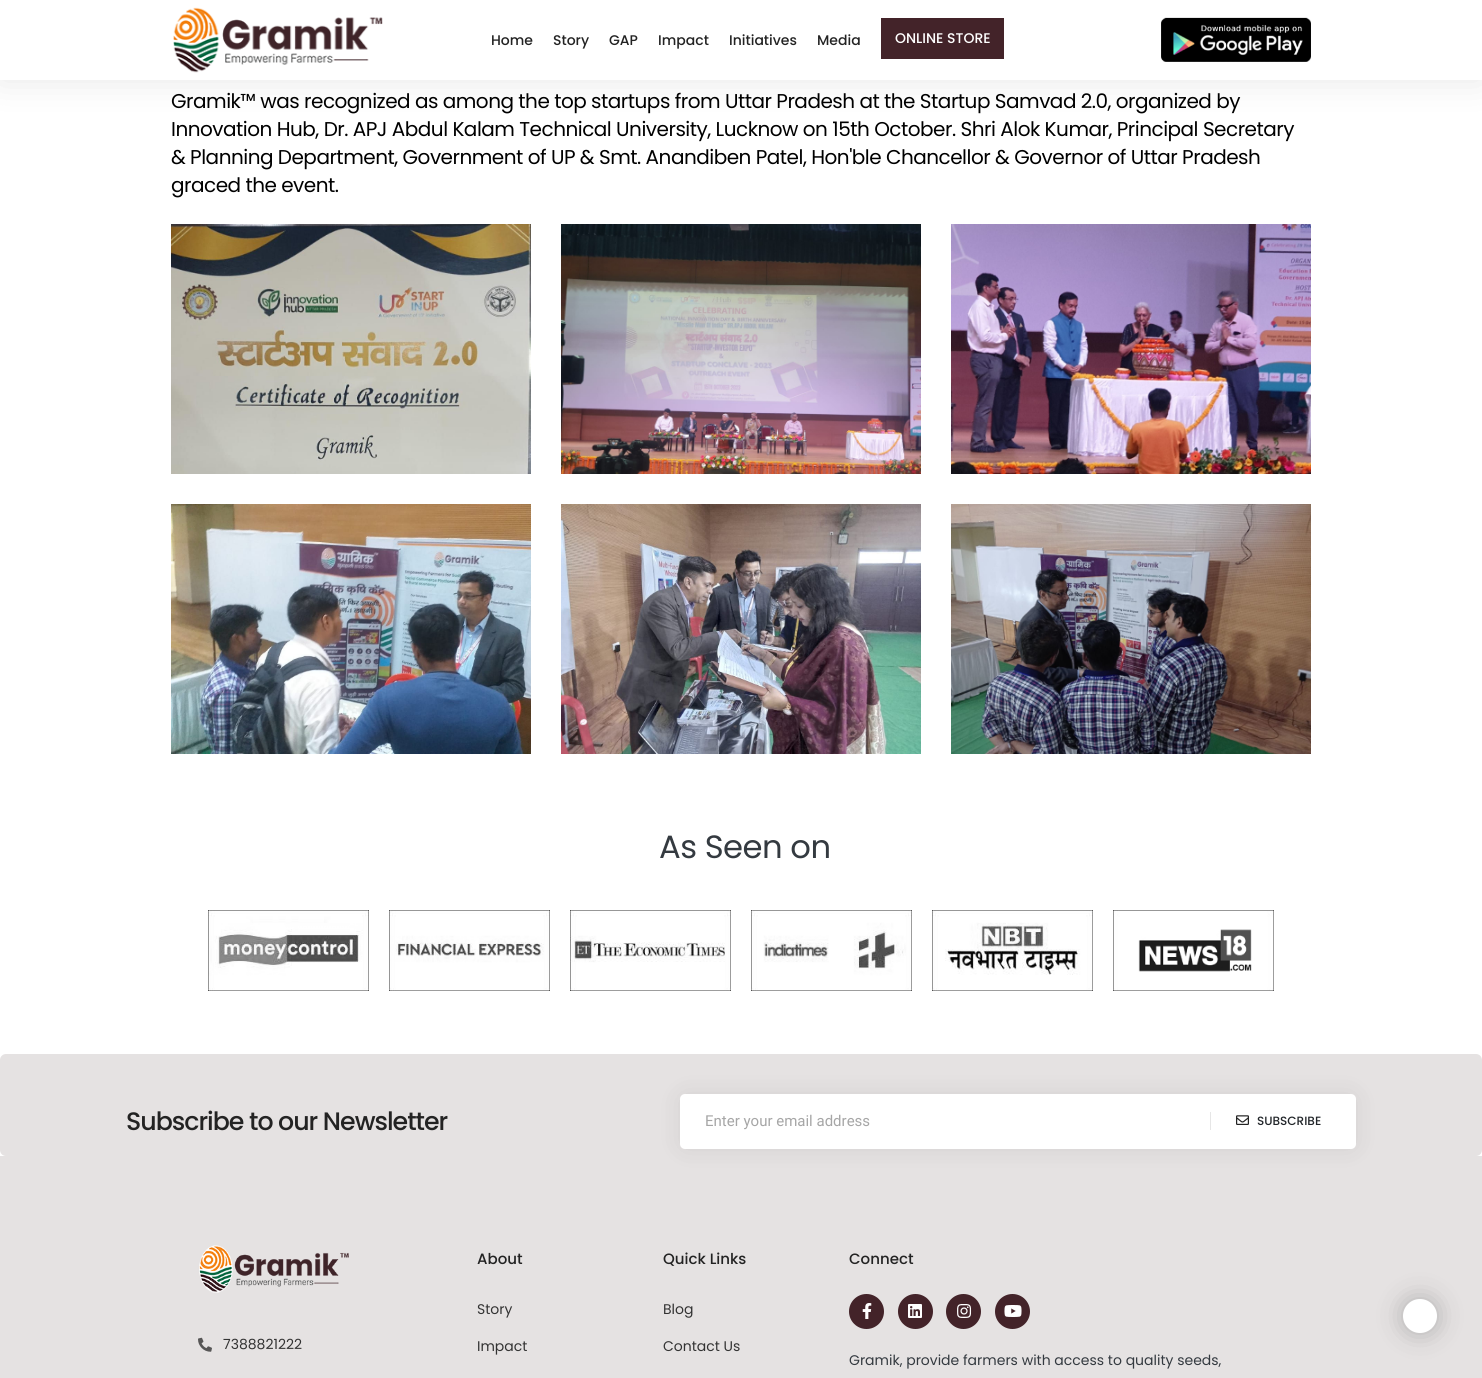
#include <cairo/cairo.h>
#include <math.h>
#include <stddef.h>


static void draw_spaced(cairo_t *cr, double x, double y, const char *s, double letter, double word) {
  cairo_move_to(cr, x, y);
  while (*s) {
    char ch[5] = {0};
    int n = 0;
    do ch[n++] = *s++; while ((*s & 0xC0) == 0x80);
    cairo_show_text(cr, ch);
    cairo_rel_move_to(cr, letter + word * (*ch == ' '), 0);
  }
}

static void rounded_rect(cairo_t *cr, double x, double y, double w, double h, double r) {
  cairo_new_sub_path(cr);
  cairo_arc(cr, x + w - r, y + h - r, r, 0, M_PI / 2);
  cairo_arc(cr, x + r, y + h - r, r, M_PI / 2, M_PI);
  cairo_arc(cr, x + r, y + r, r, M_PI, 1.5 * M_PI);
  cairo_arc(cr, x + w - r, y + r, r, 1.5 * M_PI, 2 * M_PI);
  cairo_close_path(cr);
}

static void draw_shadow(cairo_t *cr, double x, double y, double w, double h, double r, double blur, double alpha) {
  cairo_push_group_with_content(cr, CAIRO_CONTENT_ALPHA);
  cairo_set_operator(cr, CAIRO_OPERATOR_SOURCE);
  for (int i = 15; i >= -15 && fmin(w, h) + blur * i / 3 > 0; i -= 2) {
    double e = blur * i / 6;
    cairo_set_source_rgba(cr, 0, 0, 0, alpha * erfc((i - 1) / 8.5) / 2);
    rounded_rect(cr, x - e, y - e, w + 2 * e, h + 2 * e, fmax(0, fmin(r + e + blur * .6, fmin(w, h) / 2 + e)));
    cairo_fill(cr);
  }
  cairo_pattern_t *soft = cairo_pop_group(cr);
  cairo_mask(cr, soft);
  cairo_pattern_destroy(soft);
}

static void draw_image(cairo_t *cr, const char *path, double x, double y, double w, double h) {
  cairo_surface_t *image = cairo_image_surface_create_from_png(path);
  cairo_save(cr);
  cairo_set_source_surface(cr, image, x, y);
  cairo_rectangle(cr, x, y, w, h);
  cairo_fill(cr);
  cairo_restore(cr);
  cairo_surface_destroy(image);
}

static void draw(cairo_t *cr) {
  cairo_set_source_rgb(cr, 1, 1, 1);
  cairo_paint(cr);
  cairo_set_source_rgb(cr, 0, 0, 0);
  draw_shadow(cr, 0, 0, 1482, 80, 0, 17.5, 0.1);
  cairo_set_source_rgb(cr, 1, 1, 1);
  cairo_rectangle(cr, 0, 0, 1482, 80);
  cairo_fill(cr);
  draw_image(cr, "images/1.png", 173, 7, 210, 66);
  cairo_set_source_rgb(cr, 67 / 255.0, 35 / 255.0, 41 / 255.0);
  cairo_rectangle(cr, 881, 18, 123, 41);
  cairo_fill(cr);
  draw_image(cr, "images/2.png", 1161, 17, 150, 45);
  draw_image(cr, "images/3.png", 171, 224, 360, 250);
  draw_image(cr, "images/4.png", 561, 224, 360, 250);
  draw_image(cr, "images/5.png", 951, 224, 360, 250);
  draw_image(cr, "images/6.png", 171, 504, 360, 250);
  draw_image(cr, "images/7.png", 561, 504, 360, 250);
  draw_image(cr, "images/8.png", 951, 504, 360, 250);
  draw_image(cr, "images/9.png", 208, 910, 161, 81);
  draw_image(cr, "images/10.png", 389, 910, 161, 81);
  draw_image(cr, "images/11.png", 570, 910, 161, 81);
  draw_image(cr, "images/12.png", 751, 910, 161, 81);
  draw_image(cr, "images/13.png", 932, 910, 161, 81);
  draw_image(cr, "images/14.png", 1113, 910, 161, 81);
  cairo_set_source_rgb(cr, 229 / 255.0, 226 / 255.0, 226 / 255.0);
  rounded_rect(cr, 0, 1054, 1482, 102, 6);
  cairo_fill(cr);
  cairo_rectangle(cr, 0, 1156, 1482, 222);
  cairo_fill(cr);
  cairo_set_source_rgb(cr, 0, 0, 0);
  draw_shadow(cr, 680, 1094, 676, 55, 5, 12.5, 0.08);
  cairo_set_source_rgb(cr, 1, 1, 1);
  rounded_rect(cr, 680, 1094, 676, 55, 5);
  cairo_fill(cr);
  cairo_set_source_rgb(cr, 230 / 255.0, 230 / 255.0, 230 / 255.0);
  cairo_rectangle(cr, 1210, 1112, 1, 18);
  cairo_fill(cr);
  draw_image(cr, "images/15.png", 1236, 1115, 13, 10);
  draw_image(cr, "images/16.png", 199, 1245, 150, 48);
  draw_image(cr, "images/17.png", 198, 1337, 14, 15);
  cairo_set_source_rgb(cr, 67 / 255.0, 35 / 255.0, 41 / 255.0);
  cairo_arc(cr, 866.5, 1311.5, 17.5, 0, 2 * M_PI);
  cairo_fill(cr);
  draw_image(cr, "images/18.png", 862, 1303, 10, 16);
  cairo_arc(cr, 915.5, 1311.5, 17.5, 0, 2 * M_PI);
  cairo_fill(cr);
  draw_image(cr, "images/19.png", 908, 1304, 14, 14);
  cairo_arc(cr, 963.5, 1311.5, 17.5, 0, 2 * M_PI);
  cairo_fill(cr);
  draw_image(cr, "images/20.png", 957, 1304, 15, 14);
  cairo_arc(cr, 1012.5, 1311.5, 17.5, 0, 2 * M_PI);
  cairo_fill(cr);
  draw_image(cr, "images/21.png", 1004, 1305, 18, 12);
  cairo_set_source_rgb(cr, 23 / 255.0, 23 / 255.0, 23 / 255.0);
  draw_shadow(cr, 1403, 1299, 34, 34, 17, 12.5, 0.25);
  cairo_set_source_rgb(cr, 1, 1, 1);
  cairo_arc(cr, 1420, 1316, 17, 0, 2 * M_PI);
  cairo_fill(cr);
  cairo_select_font_face(cr, "Poppins Medium", CAIRO_FONT_SLANT_NORMAL, CAIRO_FONT_WEIGHT_NORMAL);
  cairo_set_font_size(cr, 14);
  cairo_set_source_rgb(cr, 35 / 255.0, 35 / 255.0, 35 / 255.0);
  cairo_move_to(cr, 491, 45);
  cairo_show_text(cr, "Home");
  cairo_move_to(cr, 553, 45);
  cairo_show_text(cr, "Story");
  cairo_move_to(cr, 609, 45);
  cairo_show_text(cr, "GAP");
  cairo_move_to(cr, 658, 45);
  cairo_show_text(cr, "Impact");
  cairo_move_to(cr, 729, 45);
  cairo_show_text(cr, "Initiatives");
  cairo_move_to(cr, 817, 45);
  cairo_show_text(cr, "Media");
  cairo_set_source_rgb(cr, 1, 1, 1);
  cairo_move_to(cr, 895, 43);
  cairo_show_text(cr, "ONLINE STORE");
  cairo_select_font_face(cr, "Poppins", CAIRO_FONT_SLANT_NORMAL, CAIRO_FONT_WEIGHT_NORMAL);
  cairo_set_font_size(cr, 20);
  cairo_set_source_rgb(cr, 0, 0, 0);
  draw_spaced(cr, 171, 108, "Gramik™ was recognized as among the top startups from Uttar Pradesh at the Startup Samvad 2.0, organized by", -0.5, 0);
  draw_spaced(cr, 171, 136, "Innovation Hub, Dr. APJ Abdul Kalam Technical University, Lucknow on 15th October. Shri Alok Kumar, Principal Secretary", -0.5, 0);
  draw_spaced(cr, 171, 164, "& Planning Department, Government of UP & Smt. Anandiben Patel, Hon'ble Chancellor & Governor of Uttar Pradesh", -0.5, 0);
  draw_spaced(cr, 171, 192, "graced the event.", -0.5, 0);
  cairo_set_font_size(cr, 32.25);
  cairo_set_source_rgb(cr, 52 / 255.0, 58 / 255.0, 64 / 255.0);
  draw_spaced(cr, 659, 858, "As Seen on", -0.5, 0);
  cairo_select_font_face(cr, "Poppins Medium", CAIRO_FONT_SLANT_NORMAL, CAIRO_FONT_WEIGHT_NORMAL);
  cairo_set_font_size(cr, 25.25);
  cairo_set_source_rgb(cr, 35 / 255.0, 35 / 255.0, 35 / 255.0);
  draw_spaced(cr, 126, 1130, "Subscribe to our Newsletter", -1, 0);
  cairo_select_font_face(cr, "Roboto", CAIRO_FONT_SLANT_NORMAL, CAIRO_FONT_WEIGHT_NORMAL);
  cairo_set_font_size(cr, 15);
  cairo_set_source_rgb(cr, 166 / 255.0, 166 / 255.0, 166 / 255.0);
  cairo_move_to(cr, 705, 1126);
  cairo_show_text(cr, "Enter your email address");
  cairo_select_font_face(cr, "Poppins Medium", CAIRO_FONT_SLANT_NORMAL, CAIRO_FONT_WEIGHT_NORMAL);
  cairo_set_font_size(cr, 12);
  cairo_set_source_rgb(cr, 33 / 255.0, 37 / 255.0, 41 / 255.0);
  cairo_move_to(cr, 1257, 1125);
  cairo_show_text(cr, "SUBSCRIBE");
  cairo_select_font_face(cr, "Poppins", CAIRO_FONT_SLANT_NORMAL, CAIRO_FONT_WEIGHT_NORMAL);
  cairo_set_font_size(cr, 14);
  cairo_set_source_rgb(cr, 51 / 255.0, 51 / 255.0, 51 / 255.0);
  cairo_move_to(cr, 223, 1349);
  cairo_show_text(cr, "7388821222");
  cairo_select_font_face(cr, "Poppins Medium", CAIRO_FONT_SLANT_NORMAL, CAIRO_FONT_WEIGHT_NORMAL);
  cairo_set_font_size(cr, 15);
  cairo_set_source_rgb(cr, 35 / 255.0, 35 / 255.0, 35 / 255.0);
  cairo_move_to(cr, 477, 1264);
  cairo_show_text(cr, "About");
  cairo_select_font_face(cr, "Poppins", CAIRO_FONT_SLANT_NORMAL, CAIRO_FONT_WEIGHT_NORMAL);
  cairo_set_font_size(cr, 14);
  cairo_set_source_rgb(cr, 51 / 255.0, 51 / 255.0, 51 / 255.0);
  cairo_move_to(cr, 477, 1314);
  cairo_show_text(cr, "Story");
  cairo_move_to(cr, 477, 1351);
  cairo_show_text(cr, "Impact");
  cairo_select_font_face(cr, "Poppins Medium", CAIRO_FONT_SLANT_NORMAL, CAIRO_FONT_WEIGHT_NORMAL);
  cairo_set_font_size(cr, 15);
  cairo_set_source_rgb(cr, 35 / 255.0, 35 / 255.0, 35 / 255.0);
  cairo_move_to(cr, 663, 1264);
  cairo_show_text(cr, "Quick Links");
  cairo_select_font_face(cr, "Poppins", CAIRO_FONT_SLANT_NORMAL, CAIRO_FONT_WEIGHT_NORMAL);
  cairo_set_font_size(cr, 14);
  cairo_set_source_rgb(cr, 51 / 255.0, 51 / 255.0, 51 / 255.0);
  cairo_move_to(cr, 663, 1314);
  cairo_show_text(cr, "Blog");
  cairo_move_to(cr, 663, 1351);
  cairo_show_text(cr, "Contact Us");
  cairo_select_font_face(cr, "Poppins Medium", CAIRO_FONT_SLANT_NORMAL, CAIRO_FONT_WEIGHT_NORMAL);
  cairo_set_font_size(cr, 15);
  cairo_set_source_rgb(cr, 35 / 255.0, 35 / 255.0, 35 / 255.0);
  cairo_move_to(cr, 849, 1264);
  cairo_show_text(cr, "Connect");
  cairo_select_font_face(cr, "Poppins", CAIRO_FONT_SLANT_NORMAL, CAIRO_FONT_WEIGHT_NORMAL);
  cairo_set_font_size(cr, 14);
  cairo_set_source_rgb(cr, 52 / 255.0, 58 / 255.0, 64 / 255.0);
  cairo_move_to(cr, 849, 1365);
  cairo_show_text(cr, "Gramik, provide farmers with access to quality seeds,");
}

int main(void) {
  cairo_surface_t *surface = cairo_image_surface_create(CAIRO_FORMAT_RGB24, 1482, 1378);
  cairo_t *cr = cairo_create(surface);
  cairo_font_options_t *options = cairo_font_options_create();
  cairo_font_options_set_hint_metrics(options, CAIRO_HINT_METRICS_OFF);
  cairo_font_options_set_hint_style(options, CAIRO_HINT_STYLE_NONE);
  cairo_set_font_options(cr, options);
  cairo_set_miter_limit(cr, 4);
  draw(cr);
  cairo_surface_write_to_png(surface, "out.png");
  cairo_font_options_destroy(options);
  cairo_destroy(cr);
  cairo_surface_destroy(surface);
  return 0;
}
